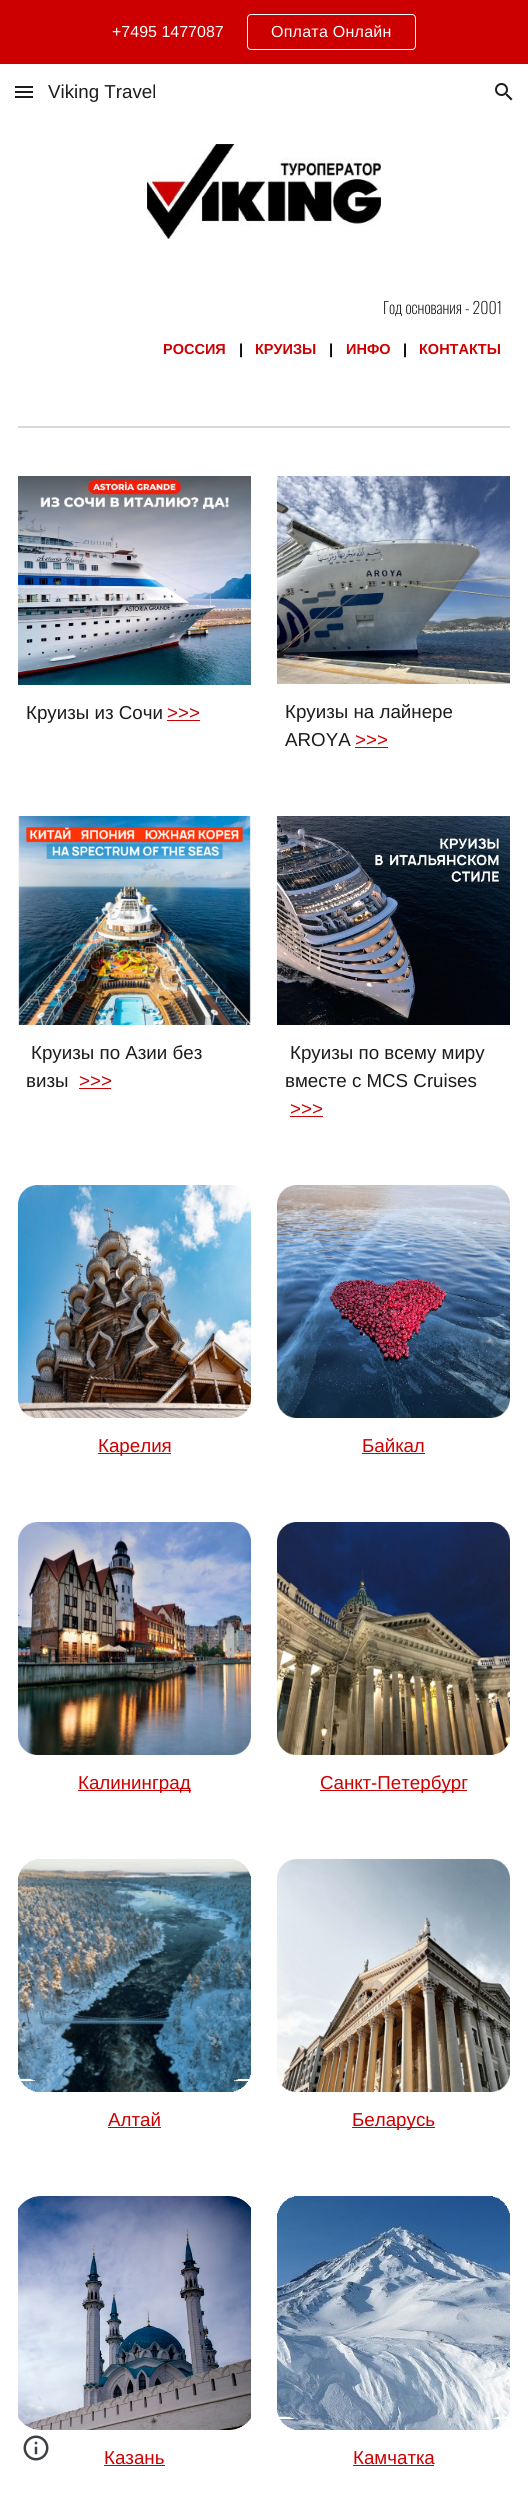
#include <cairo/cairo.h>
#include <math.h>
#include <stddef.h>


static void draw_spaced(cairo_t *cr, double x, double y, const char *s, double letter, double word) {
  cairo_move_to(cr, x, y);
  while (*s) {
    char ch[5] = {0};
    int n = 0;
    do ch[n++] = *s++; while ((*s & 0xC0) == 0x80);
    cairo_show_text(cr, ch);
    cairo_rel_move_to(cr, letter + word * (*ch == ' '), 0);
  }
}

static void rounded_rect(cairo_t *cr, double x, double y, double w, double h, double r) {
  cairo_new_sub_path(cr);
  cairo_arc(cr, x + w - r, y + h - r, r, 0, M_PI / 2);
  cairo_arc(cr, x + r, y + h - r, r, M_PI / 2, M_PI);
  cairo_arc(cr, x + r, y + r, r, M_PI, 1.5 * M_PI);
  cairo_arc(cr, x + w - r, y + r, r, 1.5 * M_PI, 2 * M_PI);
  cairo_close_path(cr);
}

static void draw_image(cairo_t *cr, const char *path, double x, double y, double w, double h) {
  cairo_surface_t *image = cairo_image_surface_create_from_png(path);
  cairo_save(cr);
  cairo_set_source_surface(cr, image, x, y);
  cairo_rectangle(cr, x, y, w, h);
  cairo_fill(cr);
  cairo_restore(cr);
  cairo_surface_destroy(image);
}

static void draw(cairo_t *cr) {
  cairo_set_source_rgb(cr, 1, 1, 1);
  cairo_paint(cr);
  cairo_set_source_rgb(cr, 204 / 255.0, 0, 0);
  cairo_rectangle(cr, 0, 0, 528, 64);
  cairo_fill(cr);
  rounded_rect(cr, 247.5, 14.5, 168, 35, 3.5);
  cairo_set_source_rgb(cr, 1, 1, 1);
  cairo_set_line_width(cr, 1);
  cairo_stroke(cr);
  cairo_set_source_rgb(cr, 28 / 255.0, 28 / 255.0, 28 / 255.0);
  cairo_rectangle(cr, 15, 86, 18, 2);
  cairo_fill(cr);
  cairo_rectangle(cr, 15, 91, 18, 2);
  cairo_fill(cr);
  cairo_rectangle(cr, 15, 96, 18, 2);
  cairo_fill(cr);
  draw_image(cr, "images/1.png", 495, 83, 18, 18);
  draw_image(cr, "images/2.png", 147, 144, 234, 95);
  cairo_set_source_rgb(cr, 217 / 255.0, 217 / 255.0, 217 / 255.0);
  cairo_rectangle(cr, 18, 426, 492, 2);
  cairo_fill(cr);
  draw_image(cr, "images/3.png", 18, 476, 233, 209);
  cairo_set_source_rgb(cr, 204 / 255.0, 0, 0);
  cairo_rectangle(cr, 167, 720, 33, 1);
  cairo_fill(cr);
  draw_image(cr, "images/4.png", 277, 476, 233, 208);
  cairo_rectangle(cr, 355, 747, 33, 1);
  cairo_fill(cr);
  draw_image(cr, "images/5.png", 18, 816, 233, 209);
  cairo_rectangle(cr, 79, 1088, 32, 1);
  cairo_fill(cr);
  draw_image(cr, "images/6.png", 277, 816, 233, 209);
  cairo_rectangle(cr, 290, 1116, 33, 1);
  cairo_fill(cr);
  draw_image(cr, "images/7.png", 18, 1185, 233, 233);
  cairo_rectangle(cr, 98, 1453, 73, 1);
  cairo_fill(cr);
  draw_image(cr, "images/8.png", 277, 1185, 233, 233);
  cairo_rectangle(cr, 362, 1453, 63, 1);
  cairo_fill(cr);
  draw_image(cr, "images/9.png", 18, 1522, 233, 233);
  cairo_rectangle(cr, 78, 1790, 113, 1);
  cairo_fill(cr);
  draw_image(cr, "images/10.png", 277, 1522, 233, 233);
  cairo_rectangle(cr, 320, 1790, 147, 1);
  cairo_fill(cr);
  draw_image(cr, "images/11.png", 18, 1859, 233, 233);
  cairo_rectangle(cr, 108, 2127, 53, 1);
  cairo_fill(cr);
  draw_image(cr, "images/12.png", 277, 1859, 233, 233);
  cairo_rectangle(cr, 352, 2127, 83, 1);
  cairo_fill(cr);
  draw_image(cr, "images/13.png", 18, 2196, 233, 234);
  cairo_rectangle(cr, 104, 2465, 61, 1);
  cairo_fill(cr);
  draw_image(cr, "images/14.png", 277, 2196, 233, 234);
  cairo_rectangle(cr, 353, 2465, 81, 1);
  cairo_fill(cr);
  draw_image(cr, "images/15.png", 23, 2435, 26, 26);
  cairo_select_font_face(cr, "Liberation Sans", CAIRO_FONT_SLANT_NORMAL, CAIRO_FONT_WEIGHT_NORMAL);
  cairo_set_font_size(cr, 16);
  cairo_set_source_rgb(cr, 1, 1, 1);
  cairo_move_to(cr, 112, 37);
  cairo_show_text(cr, "+7495 1477087");
  draw_spaced(cr, 271, 37, "Оплата Онлайн", 0.25, 0);
  cairo_set_font_size(cr, 18.75);
  cairo_set_source_rgb(cr, 28 / 255.0, 28 / 255.0, 28 / 255.0);
  cairo_move_to(cr, 48, 98);
  cairo_show_text(cr, "Viking Travel");
  cairo_select_font_face(cr, "Oswald ExtraLight", CAIRO_FONT_SLANT_NORMAL, CAIRO_FONT_WEIGHT_NORMAL);
  cairo_set_font_size(cr, 16);
  cairo_set_source_rgb(cr, 0, 0, 0);
  cairo_move_to(cr, 383, 314);
  cairo_show_text(cr, "Год основания - 2001");
  cairo_select_font_face(cr, "Liberation Sans", CAIRO_FONT_SLANT_NORMAL, CAIRO_FONT_WEIGHT_BOLD);
  cairo_set_font_size(cr, 14.5);
  cairo_set_source_rgb(cr, 204 / 255.0, 0, 0);
  cairo_move_to(cr, 163, 354);
  cairo_show_text(cr, "РОССИЯ");
  cairo_set_source_rgb(cr, 0, 0, 0);
  cairo_move_to(cr, 239, 354);
  cairo_show_text(cr, "|");
  cairo_set_source_rgb(cr, 204 / 255.0, 0, 0);
  cairo_move_to(cr, 255, 354);
  cairo_show_text(cr, "КРУИЗЫ");
  cairo_set_source_rgb(cr, 0, 0, 0);
  cairo_move_to(cr, 329, 354);
  cairo_show_text(cr, "|");
  cairo_set_source_rgb(cr, 204 / 255.0, 0, 0);
  cairo_move_to(cr, 346, 354);
  cairo_show_text(cr, "ИНФО");
  cairo_set_source_rgb(cr, 0, 0, 0);
  cairo_move_to(cr, 403, 354);
  cairo_show_text(cr, "|");
  cairo_set_source_rgb(cr, 204 / 255.0, 0, 0);
  cairo_move_to(cr, 419, 354);
  cairo_show_text(cr, "КОНТАКТЫ");
  cairo_select_font_face(cr, "Liberation Sans", CAIRO_FONT_SLANT_NORMAL, CAIRO_FONT_WEIGHT_NORMAL);
  cairo_set_font_size(cr, 18.75);
  cairo_set_source_rgb(cr, 28 / 255.0, 28 / 255.0, 28 / 255.0);
  cairo_move_to(cr, 26, 719);
  cairo_show_text(cr, "Круизы из Сочи");
  cairo_set_source_rgb(cr, 204 / 255.0, 0, 0);
  cairo_move_to(cr, 167, 719);
  cairo_show_text(cr, ">>>");
  cairo_set_source_rgb(cr, 28 / 255.0, 28 / 255.0, 28 / 255.0);
  cairo_move_to(cr, 285, 718);
  cairo_show_text(cr, "Круизы на лайнере");
  cairo_move_to(cr, 285, 746);
  cairo_show_text(cr, "AROYA");
  cairo_set_source_rgb(cr, 204 / 255.0, 0, 0);
  cairo_move_to(cr, 355, 746);
  cairo_show_text(cr, ">>>");
  cairo_set_source_rgb(cr, 28 / 255.0, 28 / 255.0, 28 / 255.0);
  cairo_move_to(cr, 31, 1059);
  cairo_show_text(cr, "Круизы по Азии без");
  cairo_move_to(cr, 26, 1087);
  cairo_show_text(cr, "визы");
  cairo_set_source_rgb(cr, 204 / 255.0, 0, 0);
  cairo_move_to(cr, 79, 1087);
  cairo_show_text(cr, ">>>");
  cairo_set_source_rgb(cr, 28 / 255.0, 28 / 255.0, 28 / 255.0);
  cairo_move_to(cr, 290, 1059);
  cairo_show_text(cr, "Круизы по всему миру");
  cairo_move_to(cr, 285, 1087);
  cairo_show_text(cr, "вместе с MCS Сruises");
  cairo_set_source_rgb(cr, 204 / 255.0, 0, 0);
  cairo_move_to(cr, 290, 1115);
  cairo_show_text(cr, ">>>");
  cairo_move_to(cr, 98, 1452);
  cairo_show_text(cr, "Карелия");
  cairo_move_to(cr, 362, 1452);
  cairo_show_text(cr, "Байкал");
  cairo_move_to(cr, 78, 1789);
  cairo_show_text(cr, "Калининград");
  cairo_move_to(cr, 320, 1789);
  cairo_show_text(cr, "Санкт-Петербург");
  cairo_move_to(cr, 108, 2126);
  cairo_show_text(cr, "Алтай");
  cairo_move_to(cr, 352, 2126);
  cairo_show_text(cr, "Беларусь");
  cairo_move_to(cr, 104, 2464);
  cairo_show_text(cr, "Казань");
  cairo_move_to(cr, 353, 2464);
  cairo_show_text(cr, "Камчатка");
}

int main(void) {
  cairo_surface_t *surface = cairo_image_surface_create(CAIRO_FORMAT_RGB24, 528, 2495);
  cairo_t *cr = cairo_create(surface);
  cairo_font_options_t *options = cairo_font_options_create();
  cairo_font_options_set_hint_metrics(options, CAIRO_HINT_METRICS_OFF);
  cairo_font_options_set_hint_style(options, CAIRO_HINT_STYLE_NONE);
  cairo_set_font_options(cr, options);
  cairo_set_miter_limit(cr, 4);
  draw(cr);
  cairo_surface_write_to_png(surface, "out.png");
  cairo_font_options_destroy(options);
  cairo_destroy(cr);
  cairo_surface_destroy(surface);
  return 0;
}
